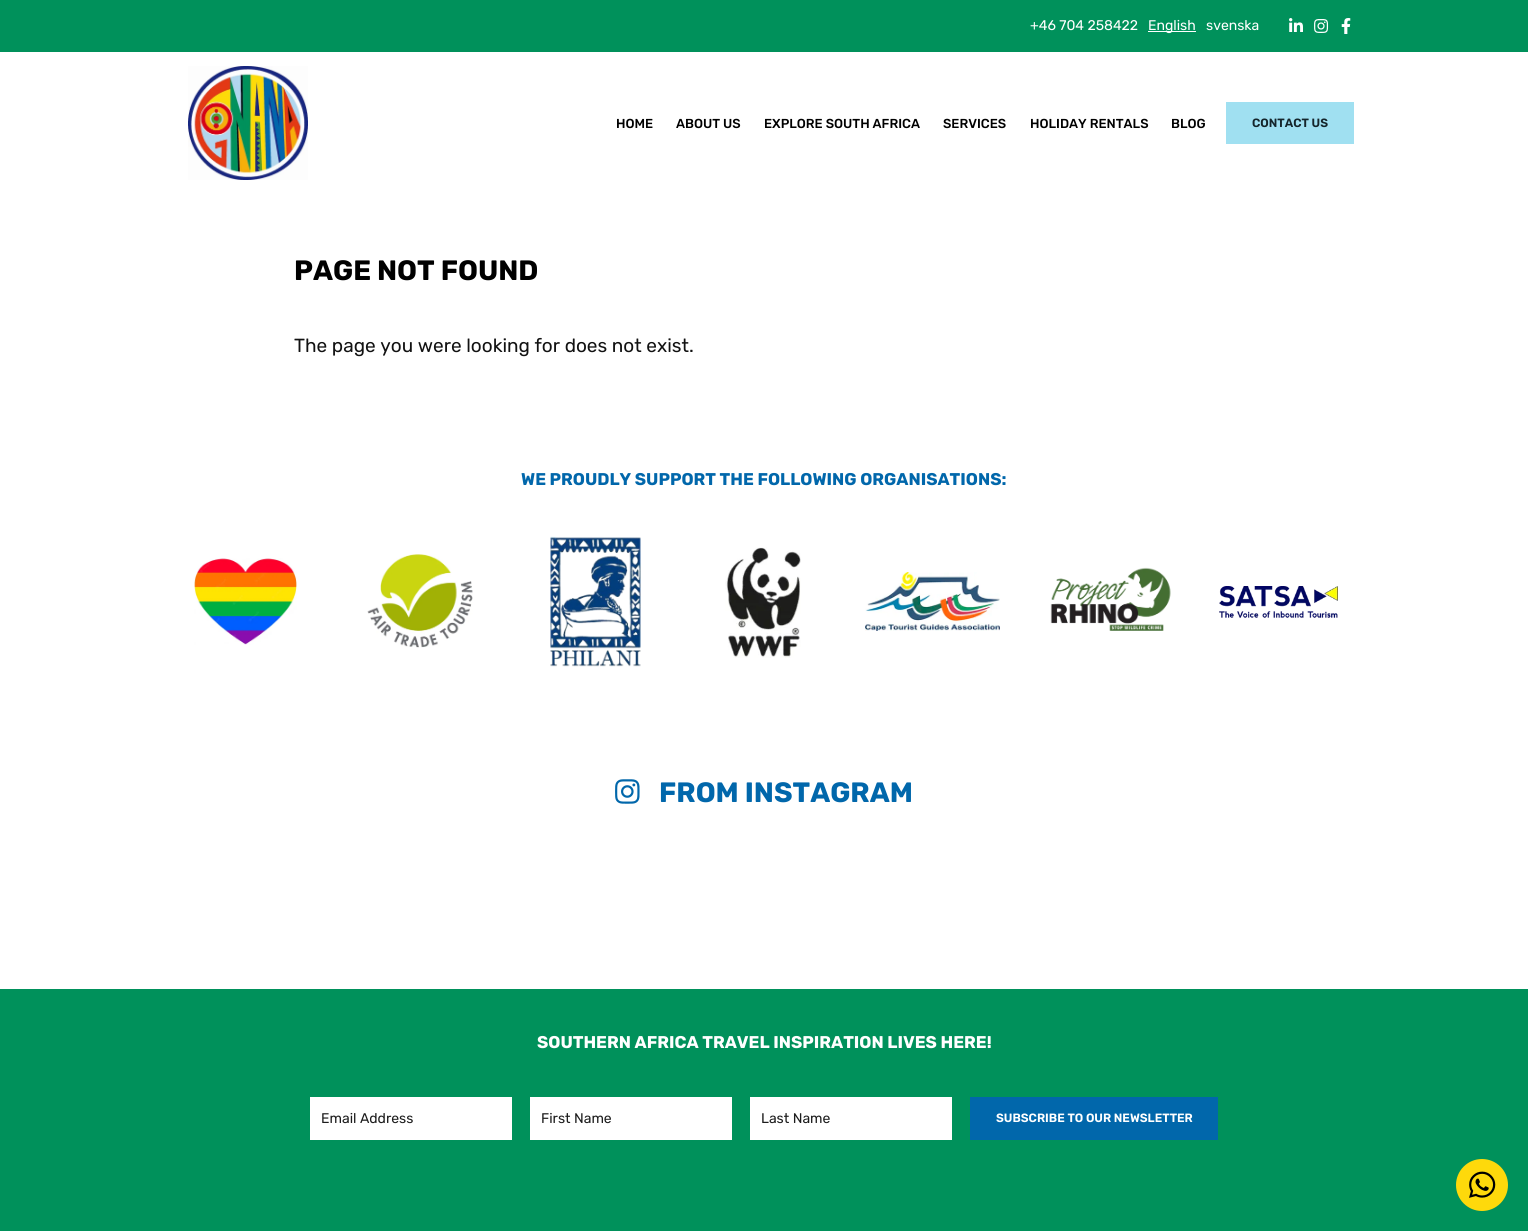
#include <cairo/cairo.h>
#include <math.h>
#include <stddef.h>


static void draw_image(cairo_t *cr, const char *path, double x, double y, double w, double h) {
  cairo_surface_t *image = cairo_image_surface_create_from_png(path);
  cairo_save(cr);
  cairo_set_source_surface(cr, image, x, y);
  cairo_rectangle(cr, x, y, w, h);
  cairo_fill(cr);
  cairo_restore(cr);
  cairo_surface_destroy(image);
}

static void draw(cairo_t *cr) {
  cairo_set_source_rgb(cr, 1, 1, 1);
  cairo_paint(cr);
  cairo_set_source_rgb(cr, 0, 145 / 255.0, 91 / 255.0);
  cairo_rectangle(cr, 0, 0, 1528, 52);
  cairo_fill(cr);
  cairo_set_source_rgb(cr, 1, 1, 1);
  cairo_rectangle(cr, 1148, 31, 48, 1);
  cairo_fill(cr);
  draw_image(cr, "images/1.png", 1289, 18, 14, 14);
  draw_image(cr, "images/2.png", 1314, 19, 15, 14);
  draw_image(cr, "images/3.png", 1341, 18, 10, 16);
  draw_image(cr, "images/4.png", 188, 66, 120, 114);
  cairo_set_source_rgb(cr, 160 / 255.0, 224 / 255.0, 241 / 255.0);
  cairo_rectangle(cr, 1226, 102, 128, 42);
  cairo_fill(cr);
  draw_image(cr, "images/5.png", 194, 558, 103, 87);
  draw_image(cr, "images/6.png", 367, 554, 106, 94);
  draw_image(cr, "images/7.png", 550, 536, 91, 131);
  draw_image(cr, "images/8.png", 725, 547, 76, 111);
  draw_image(cr, "images/9.png", 865, 572, 135, 59);
  draw_image(cr, "images/10.png", 1050, 567, 121, 64);
  draw_image(cr, "images/11.png", 1219, 586, 119, 32);
  draw_image(cr, "images/12.png", 615, 779, 25, 25);
  cairo_set_source_rgb(cr, 0, 145 / 255.0, 91 / 255.0);
  cairo_rectangle(cr, 0, 989, 1528, 242);
  cairo_fill(cr);
  cairo_set_source_rgb(cr, 1, 1, 1);
  cairo_rectangle(cr, 310, 1097, 202, 43);
  cairo_fill(cr);
  cairo_rectangle(cr, 530, 1097, 202, 43);
  cairo_fill(cr);
  cairo_rectangle(cr, 750, 1097, 202, 43);
  cairo_fill(cr);
  cairo_set_source_rgb(cr, 1 / 255.0, 103 / 255.0, 171 / 255.0);
  cairo_rectangle(cr, 970, 1097, 248, 43);
  cairo_fill(cr);
  cairo_set_source_rgb(cr, 254 / 255.0, 217 / 255.0, 11 / 255.0);
  cairo_arc(cr, 1482, 1185, 26, 0, 2 * M_PI);
  cairo_fill(cr);
  draw_image(cr, "images/13.png", 1469, 1171, 27, 27);
  cairo_select_font_face(cr, "Rubik", CAIRO_FONT_SLANT_NORMAL, CAIRO_FONT_WEIGHT_NORMAL);
  cairo_set_font_size(cr, 14);
  cairo_set_source_rgb(cr, 1, 1, 1);
  cairo_move_to(cr, 1030, 30);
  cairo_show_text(cr, "+46 704 258422");
  cairo_move_to(cr, 1148, 30);
  cairo_show_text(cr, "English");
  cairo_move_to(cr, 1206, 30);
  cairo_show_text(cr, "svenska");
  cairo_select_font_face(cr, "Rubik Medium", CAIRO_FONT_SLANT_NORMAL, CAIRO_FONT_WEIGHT_NORMAL);
  cairo_set_font_size(cr, 13);
  cairo_set_source_rgb(cr, 0, 0, 0);
  cairo_move_to(cr, 616, 128);
  cairo_show_text(cr, "HOME");
  cairo_move_to(cr, 676, 128);
  cairo_show_text(cr, "ABOUT US");
  cairo_move_to(cr, 764, 128);
  cairo_show_text(cr, "EXPLORE SOUTH AFRICA");
  cairo_move_to(cr, 943, 128);
  cairo_show_text(cr, "SERVICES");
  cairo_move_to(cr, 1030, 128);
  cairo_show_text(cr, "HOLIDAY RENTALS");
  cairo_move_to(cr, 1171, 128);
  cairo_show_text(cr, "BLOG");
  cairo_select_font_face(cr, "Rubik SemiBold", CAIRO_FONT_SLANT_NORMAL, CAIRO_FONT_WEIGHT_NORMAL);
  cairo_set_font_size(cr, 12);
  cairo_set_source_rgb(cr, 21 / 255.0, 37 / 255.0, 43 / 255.0);
  cairo_move_to(cr, 1252, 127);
  cairo_show_text(cr, "CONTACT US");
  cairo_select_font_face(cr, "Rubik", CAIRO_FONT_SLANT_NORMAL, CAIRO_FONT_WEIGHT_BOLD);
  cairo_set_font_size(cr, 28);
  cairo_set_source_rgb(cr, 0, 0, 0);
  cairo_move_to(cr, 294, 280);
  cairo_show_text(cr, "PAGE NOT FOUND");
  cairo_select_font_face(cr, "Rubik", CAIRO_FONT_SLANT_NORMAL, CAIRO_FONT_WEIGHT_NORMAL);
  cairo_set_font_size(cr, 19);
  cairo_set_source_rgb(cr, 18 / 255.0, 18 / 255.0, 18 / 255.0);
  cairo_move_to(cr, 294, 352);
  cairo_show_text(cr, "The page you were looking for does not exist.");
  cairo_select_font_face(cr, "Rubik", CAIRO_FONT_SLANT_NORMAL, CAIRO_FONT_WEIGHT_BOLD);
  cairo_set_font_size(cr, 17);
  cairo_set_source_rgb(cr, 1 / 255.0, 103 / 255.0, 171 / 255.0);
  cairo_move_to(cr, 521, 485);
  cairo_show_text(cr, "WE PROUDLY SUPPORT THE FOLLOWING ORGANISATIONS:");
  cairo_set_font_size(cr, 28);
  cairo_move_to(cr, 659, 802);
  cairo_show_text(cr, "FROM INSTAGRAM");
  cairo_set_font_size(cr, 17);
  cairo_set_source_rgb(cr, 1, 1, 1);
  cairo_move_to(cr, 537, 1048);
  cairo_show_text(cr, "SOUTHERN AFRICA TRAVEL INSPIRATION LIVES HERE!");
  cairo_select_font_face(cr, "Rubik", CAIRO_FONT_SLANT_NORMAL, CAIRO_FONT_WEIGHT_NORMAL);
  cairo_set_font_size(cr, 14);
  cairo_set_source_rgb(cr, 28 / 255.0, 28 / 255.0, 28 / 255.0);
  cairo_move_to(cr, 321, 1123);
  cairo_show_text(cr, "Email Address");
  cairo_move_to(cr, 541, 1123);
  cairo_show_text(cr, "First Name");
  cairo_move_to(cr, 761, 1123);
  cairo_show_text(cr, "Last Name");
  cairo_select_font_face(cr, "Rubik SemiBold", CAIRO_FONT_SLANT_NORMAL, CAIRO_FONT_WEIGHT_NORMAL);
  cairo_set_font_size(cr, 12);
  cairo_set_source_rgb(cr, 1, 1, 1);
  cairo_move_to(cr, 996, 1122);
  cairo_show_text(cr, "SUBSCRIBE TO OUR NEWSLETTER");
}

int main(void) {
  cairo_surface_t *surface = cairo_image_surface_create(CAIRO_FORMAT_RGB24, 1528, 1231);
  cairo_t *cr = cairo_create(surface);
  cairo_font_options_t *options = cairo_font_options_create();
  cairo_font_options_set_hint_metrics(options, CAIRO_HINT_METRICS_OFF);
  cairo_font_options_set_hint_style(options, CAIRO_HINT_STYLE_NONE);
  cairo_set_font_options(cr, options);
  cairo_set_miter_limit(cr, 4);
  draw(cr);
  cairo_surface_write_to_png(surface, "out.png");
  cairo_font_options_destroy(options);
  cairo_destroy(cr);
  cairo_surface_destroy(surface);
  return 0;
}
